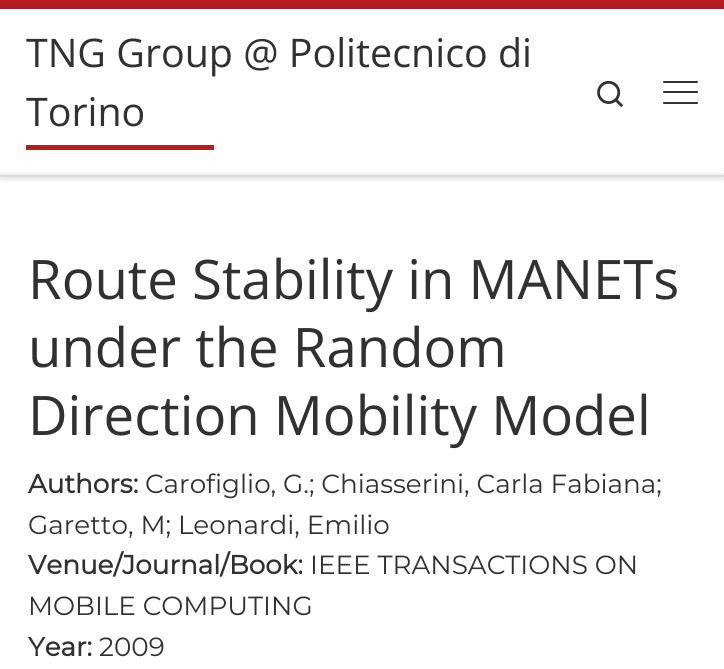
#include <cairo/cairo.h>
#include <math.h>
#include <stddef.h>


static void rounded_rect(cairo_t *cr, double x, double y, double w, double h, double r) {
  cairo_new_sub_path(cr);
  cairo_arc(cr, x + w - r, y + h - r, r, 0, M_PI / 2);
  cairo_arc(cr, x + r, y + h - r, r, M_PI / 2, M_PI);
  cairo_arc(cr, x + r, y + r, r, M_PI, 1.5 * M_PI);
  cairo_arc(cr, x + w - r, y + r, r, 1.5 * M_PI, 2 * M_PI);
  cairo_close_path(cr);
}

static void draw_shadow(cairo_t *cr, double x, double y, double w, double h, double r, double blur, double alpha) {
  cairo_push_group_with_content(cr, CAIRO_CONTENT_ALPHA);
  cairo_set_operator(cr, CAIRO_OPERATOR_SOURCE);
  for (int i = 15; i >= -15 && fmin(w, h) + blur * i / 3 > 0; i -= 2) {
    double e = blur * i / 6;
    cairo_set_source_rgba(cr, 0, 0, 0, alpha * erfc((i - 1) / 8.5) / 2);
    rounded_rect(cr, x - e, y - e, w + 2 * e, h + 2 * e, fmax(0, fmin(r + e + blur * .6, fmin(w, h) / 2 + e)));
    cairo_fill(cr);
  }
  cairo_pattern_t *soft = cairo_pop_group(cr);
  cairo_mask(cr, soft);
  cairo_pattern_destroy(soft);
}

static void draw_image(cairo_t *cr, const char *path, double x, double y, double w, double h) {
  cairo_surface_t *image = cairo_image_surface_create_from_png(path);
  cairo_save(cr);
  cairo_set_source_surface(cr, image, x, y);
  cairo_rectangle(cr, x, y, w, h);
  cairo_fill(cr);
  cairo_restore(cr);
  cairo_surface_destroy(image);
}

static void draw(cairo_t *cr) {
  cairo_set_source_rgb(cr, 1, 1, 1);
  cairo_paint(cr);
  cairo_set_source_rgb(cr, 102 / 255.0, 102 / 255.0, 102 / 255.0);
  draw_shadow(cr, 0, 4, 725, 176, 0, 2, 0.08);
  cairo_set_source_rgb(cr, 1, 1, 1);
  cairo_rectangle(cr, 0, 9, 724, 164);
  cairo_fill(cr);
  cairo_set_source_rgb(cr, 184 / 255.0, 29 / 255.0, 34 / 255.0);
  cairo_rectangle(cr, 0, 0, 724, 9);
  cairo_fill(cr);
  cairo_set_source_rgb(cr, 239 / 255.0, 239 / 255.0, 239 / 255.0);
  cairo_new_path(cr);
  cairo_move_to(cr, 0, 175);
  cairo_line_to(cr, 0, 177);
  cairo_line_to(cr, 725, 177);
  cairo_line_to(cr, 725, 11);
  cairo_line_to(cr, 724, 11);
  cairo_line_to(cr, 724, 175);
  cairo_close_path(cr);
  cairo_fill(cr);
  cairo_save(cr);
  cairo_set_fill_rule(cr, CAIRO_FILL_RULE_EVEN_ODD);
  cairo_new_path(cr);
  cairo_move_to(cr, 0, 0);
  cairo_line_to(cr, 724, 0);
  cairo_line_to(cr, 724, 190);
  cairo_line_to(cr, 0, 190);
  cairo_close_path(cr);
  cairo_move_to(cr, 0, 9);
  cairo_line_to(cr, 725, 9);
  cairo_line_to(cr, 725, 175);
  cairo_line_to(cr, 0, 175);
  cairo_close_path(cr);
  cairo_clip(cr);
  cairo_set_source_rgb(cr, 0, 0, 0);
  draw_shadow(cr, 0, 9, 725, 166, 0, 4.5, 0.2);
  cairo_restore(cr);
  cairo_set_source_rgb(cr, 184 / 255.0, 29 / 255.0, 34 / 255.0);
  cairo_rectangle(cr, 26, 145, 188, 5);
  cairo_fill(cr);
  draw_image(cr, "images/1.png", 597, 80, 27, 28);
  cairo_set_source_rgb(cr, 49 / 255.0, 49 / 255.0, 49 / 255.0);
  rounded_rect(cr, 663, 81, 35, 2, 1);
  cairo_fill(cr);
  rounded_rect(cr, 663, 91, 35, 2, 1);
  cairo_fill(cr);
  rounded_rect(cr, 663, 102, 35, 2, 1);
  cairo_fill(cr);
  cairo_set_source_rgb(cr, 240 / 255.0, 240 / 255.0, 240 / 255.0);
  cairo_rectangle(cr, 0, 173, 724, 2);
  cairo_fill(cr);
  cairo_select_font_face(cr, "Open Sans", CAIRO_FONT_SLANT_NORMAL, CAIRO_FONT_WEIGHT_NORMAL);
  cairo_set_font_size(cr, 39.4);
  cairo_set_source_rgb(cr, 48 / 255.0, 49 / 255.0, 51 / 255.0);
  cairo_move_to(cr, 26, 67);
  cairo_show_text(cr, "TNG Group @ Politecnico di");
  cairo_move_to(cr, 26, 126);
  cairo_show_text(cr, "Torino");
  cairo_set_font_size(cr, 54.5);
  cairo_move_to(cr, 28, 299);
  cairo_show_text(cr, "Route Stability in MANETs");
  cairo_move_to(cr, 28, 367);
  cairo_show_text(cr, "under the Random");
  cairo_move_to(cr, 28, 435);
  cairo_show_text(cr, "Direction Mobility Model");
  cairo_select_font_face(cr, "Montserrat", CAIRO_FONT_SLANT_NORMAL, CAIRO_FONT_WEIGHT_BOLD);
  cairo_set_font_size(cr, 26.25);
  cairo_move_to(cr, 28, 493);
  cairo_show_text(cr, "Authors:");
  cairo_select_font_face(cr, "Montserrat Thin", CAIRO_FONT_SLANT_NORMAL, CAIRO_FONT_WEIGHT_NORMAL);
  cairo_move_to(cr, 145, 493);
  cairo_show_text(cr, "Carofiglio, G.; Chiasserini, Carla Fabiana;");
  cairo_move_to(cr, 28, 534);
  cairo_show_text(cr, "Garetto, M; Leonardi, Emilio");
  cairo_select_font_face(cr, "Montserrat", CAIRO_FONT_SLANT_NORMAL, CAIRO_FONT_WEIGHT_BOLD);
  cairo_move_to(cr, 28, 574);
  cairo_show_text(cr, "Venue/Journal/Book:");
  cairo_select_font_face(cr, "Montserrat Thin", CAIRO_FONT_SLANT_NORMAL, CAIRO_FONT_WEIGHT_NORMAL);
  cairo_move_to(cr, 310, 574);
  cairo_show_text(cr, "IEEE TRANSACTIONS ON");
  cairo_move_to(cr, 28, 615);
  cairo_show_text(cr, "MOBILE COMPUTING");
  cairo_select_font_face(cr, "Montserrat", CAIRO_FONT_SLANT_NORMAL, CAIRO_FONT_WEIGHT_BOLD);
  cairo_move_to(cr, 28, 656);
  cairo_show_text(cr, "Year:");
  cairo_select_font_face(cr, "Montserrat Thin", CAIRO_FONT_SLANT_NORMAL, CAIRO_FONT_WEIGHT_NORMAL);
  cairo_move_to(cr, 99, 656);
  cairo_show_text(cr, "2009");
}

int main(void) {
  cairo_surface_t *surface = cairo_image_surface_create(CAIRO_FORMAT_RGB24, 724, 669);
  cairo_t *cr = cairo_create(surface);
  cairo_font_options_t *options = cairo_font_options_create();
  cairo_font_options_set_hint_metrics(options, CAIRO_HINT_METRICS_OFF);
  cairo_font_options_set_hint_style(options, CAIRO_HINT_STYLE_NONE);
  cairo_set_font_options(cr, options);
  cairo_set_miter_limit(cr, 4);
  draw(cr);
  cairo_surface_write_to_png(surface, "out.png");
  cairo_font_options_destroy(options);
  cairo_destroy(cr);
  cairo_surface_destroy(surface);
  return 0;
}
